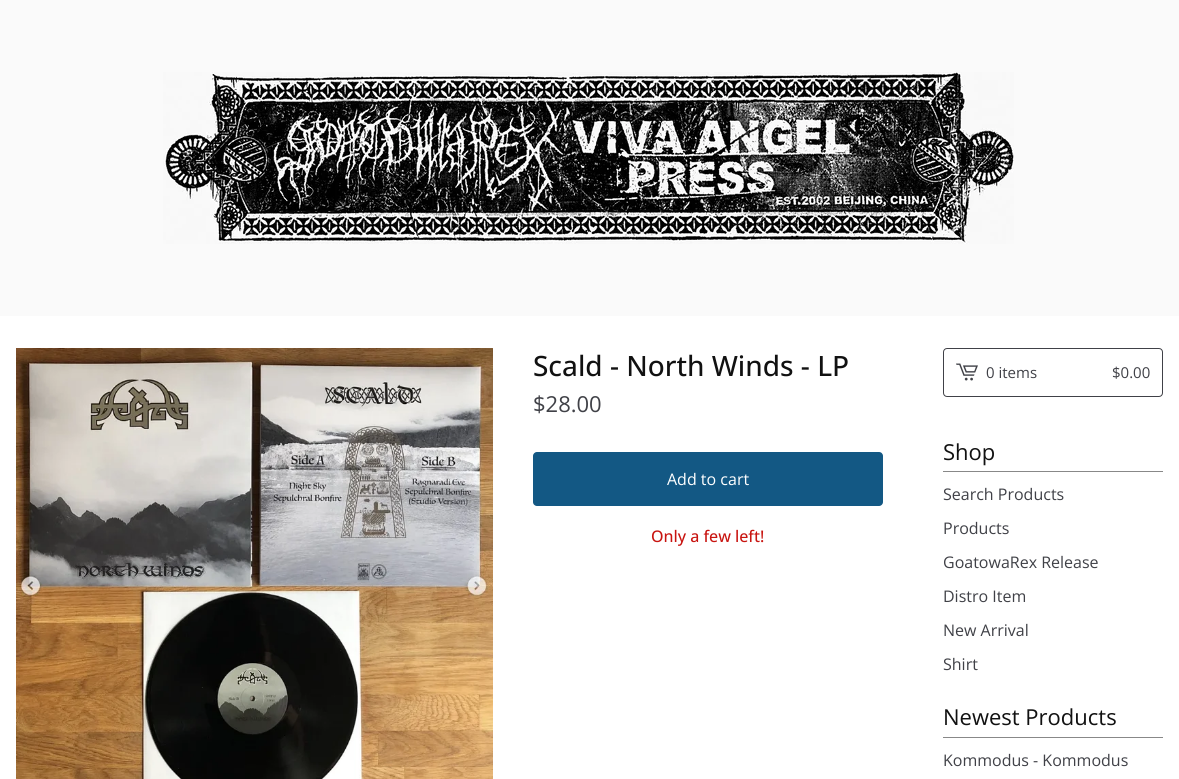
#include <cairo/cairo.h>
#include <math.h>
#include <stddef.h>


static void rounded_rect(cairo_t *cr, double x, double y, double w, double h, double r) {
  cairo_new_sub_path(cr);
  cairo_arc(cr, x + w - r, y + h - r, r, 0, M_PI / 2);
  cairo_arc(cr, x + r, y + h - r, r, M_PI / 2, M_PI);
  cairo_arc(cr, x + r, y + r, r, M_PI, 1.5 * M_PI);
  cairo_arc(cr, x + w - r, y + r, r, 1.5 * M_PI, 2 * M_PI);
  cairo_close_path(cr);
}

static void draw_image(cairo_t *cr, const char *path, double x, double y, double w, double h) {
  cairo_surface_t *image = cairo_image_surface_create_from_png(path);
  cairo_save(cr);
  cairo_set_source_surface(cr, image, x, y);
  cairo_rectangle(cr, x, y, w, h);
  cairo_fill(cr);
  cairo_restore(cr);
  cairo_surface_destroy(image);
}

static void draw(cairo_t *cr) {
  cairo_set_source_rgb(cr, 1, 1, 1);
  cairo_paint(cr);
  cairo_set_source_rgb(cr, 250 / 255.0, 250 / 255.0, 250 / 255.0);
  cairo_rectangle(cr, 0, 0, 1179, 316);
  cairo_fill(cr);
  draw_image(cr, "images/1.png", 163, 72, 851, 172);
  draw_image(cr, "images/2.png", 16, 348, 477, 431);
  cairo_set_source_rgb(cr, 19 / 255.0, 88 / 255.0, 132 / 255.0);
  rounded_rect(cr, 533, 452, 350, 54, 4);
  cairo_fill(cr);
  rounded_rect(cr, 943.5, 348.5, 219, 48, 3.5);
  cairo_set_source_rgb(cr, 64 / 255.0, 65 / 255.0, 71 / 255.0);
  cairo_set_line_width(cr, 1);
  cairo_stroke(cr);
  draw_image(cr, "images/3.png", 956, 363, 22, 18);
  cairo_set_source_rgb(cr, 136 / 255.0, 136 / 255.0, 136 / 255.0);
  cairo_rectangle(cr, 943, 471, 220, 1);
  cairo_fill(cr);
  cairo_rectangle(cr, 943, 737, 220, 1);
  cairo_fill(cr);
  cairo_select_font_face(cr, "Open Sans Medium", CAIRO_FONT_SLANT_NORMAL, CAIRO_FONT_WEIGHT_NORMAL);
  cairo_set_font_size(cr, 28);
  cairo_set_source_rgb(cr, 17 / 255.0, 17 / 255.0, 17 / 255.0);
  cairo_move_to(cr, 533, 376);
  cairo_show_text(cr, "Scald - North Winds - LP");
  cairo_select_font_face(cr, "Open Sans", CAIRO_FONT_SLANT_NORMAL, CAIRO_FONT_WEIGHT_NORMAL);
  cairo_set_font_size(cr, 22);
  cairo_set_source_rgb(cr, 64 / 255.0, 65 / 255.0, 71 / 255.0);
  cairo_move_to(cr, 533, 412);
  cairo_show_text(cr, "$28.00");
  cairo_set_font_size(cr, 16);
  cairo_set_source_rgb(cr, 1, 1, 1);
  cairo_move_to(cr, 667, 485);
  cairo_show_text(cr, "Add to cart");
  cairo_select_font_face(cr, "Open Sans Medium", CAIRO_FONT_SLANT_NORMAL, CAIRO_FONT_WEIGHT_NORMAL);
  cairo_set_source_rgb(cr, 200 / 255.0, 20 / 255.0, 16 / 255.0);
  cairo_move_to(cr, 651, 542);
  cairo_show_text(cr, "Only a few left!");
  cairo_select_font_face(cr, "Open Sans", CAIRO_FONT_SLANT_NORMAL, CAIRO_FONT_WEIGHT_NORMAL);
  cairo_set_font_size(cr, 15);
  cairo_set_source_rgb(cr, 64 / 255.0, 65 / 255.0, 71 / 255.0);
  cairo_move_to(cr, 986, 378);
  cairo_show_text(cr, "0 items");
  cairo_move_to(cr, 1112, 378);
  cairo_show_text(cr, "$0.00");
  cairo_set_font_size(cr, 22);
  cairo_set_source_rgb(cr, 17 / 255.0, 17 / 255.0, 17 / 255.0);
  cairo_move_to(cr, 943, 460);
  cairo_show_text(cr, "Shop");
  cairo_set_font_size(cr, 16);
  cairo_set_source_rgb(cr, 64 / 255.0, 65 / 255.0, 71 / 255.0);
  cairo_move_to(cr, 943, 500);
  cairo_show_text(cr, "Search Products");
  cairo_move_to(cr, 943, 534);
  cairo_show_text(cr, "Products");
  cairo_move_to(cr, 943, 568);
  cairo_show_text(cr, "GoatowaRex Release");
  cairo_move_to(cr, 943, 602);
  cairo_show_text(cr, "Distro Item");
  cairo_move_to(cr, 943, 636);
  cairo_show_text(cr, "New Arrival");
  cairo_move_to(cr, 943, 670);
  cairo_show_text(cr, "Shirt");
  cairo_set_font_size(cr, 22);
  cairo_set_source_rgb(cr, 17 / 255.0, 17 / 255.0, 17 / 255.0);
  cairo_move_to(cr, 943, 725);
  cairo_show_text(cr, "Newest Products");
  cairo_set_font_size(cr, 16);
  cairo_set_source_rgb(cr, 64 / 255.0, 65 / 255.0, 71 / 255.0);
  cairo_move_to(cr, 943, 766);
  cairo_show_text(cr, "Kommodus - Kommodus");
}

int main(void) {
  cairo_surface_t *surface = cairo_image_surface_create(CAIRO_FORMAT_RGB24, 1179, 779);
  cairo_t *cr = cairo_create(surface);
  cairo_font_options_t *options = cairo_font_options_create();
  cairo_font_options_set_hint_metrics(options, CAIRO_HINT_METRICS_OFF);
  cairo_font_options_set_hint_style(options, CAIRO_HINT_STYLE_NONE);
  cairo_set_font_options(cr, options);
  cairo_set_miter_limit(cr, 4);
  draw(cr);
  cairo_surface_write_to_png(surface, "out.png");
  cairo_font_options_destroy(options);
  cairo_destroy(cr);
  cairo_surface_destroy(surface);
  return 0;
}
